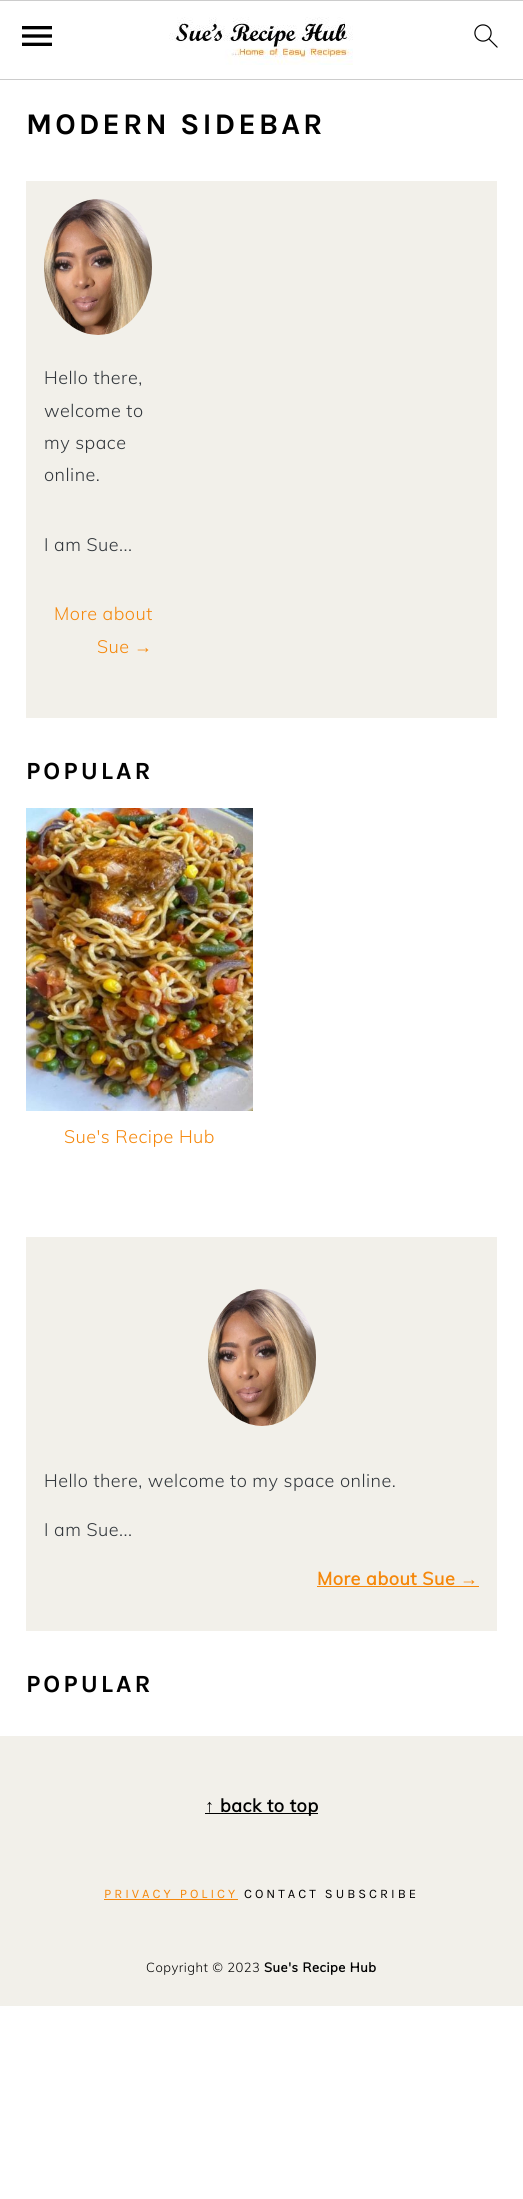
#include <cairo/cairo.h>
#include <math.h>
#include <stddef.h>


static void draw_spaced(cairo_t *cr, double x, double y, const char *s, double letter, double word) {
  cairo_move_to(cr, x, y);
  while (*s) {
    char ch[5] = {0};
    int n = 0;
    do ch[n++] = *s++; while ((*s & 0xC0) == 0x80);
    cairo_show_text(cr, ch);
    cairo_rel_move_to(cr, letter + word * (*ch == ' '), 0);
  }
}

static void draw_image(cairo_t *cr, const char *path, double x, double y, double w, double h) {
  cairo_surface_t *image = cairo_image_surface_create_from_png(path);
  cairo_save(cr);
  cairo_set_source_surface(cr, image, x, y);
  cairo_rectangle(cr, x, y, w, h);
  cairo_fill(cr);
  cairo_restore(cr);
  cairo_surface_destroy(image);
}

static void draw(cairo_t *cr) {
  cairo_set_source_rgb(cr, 1, 1, 1);
  cairo_paint(cr);
  cairo_set_source_rgb(cr, 204 / 255.0, 204 / 255.0, 204 / 255.0);
  cairo_rectangle(cr, 0, 0, 523, 1);
  cairo_fill(cr);
  cairo_rectangle(cr, 0, 79, 523, 1);
  cairo_fill(cr);
  draw_image(cr, "images/1.png", 22, 26, 30, 20);
  draw_image(cr, "images/2.png", 169, 17, 184, 48);
  draw_image(cr, "images/3.png", 474, 24, 24, 24);
  cairo_set_source_rgb(cr, 242 / 255.0, 240 / 255.0, 234 / 255.0);
  cairo_rectangle(cr, 26, 181, 471, 537);
  cairo_fill(cr);
  draw_image(cr, "images/4.png", 44, 199, 108, 136);
  draw_image(cr, "images/5.png", 26, 808, 227, 303);
  cairo_rectangle(cr, 26, 1237, 471, 394);
  cairo_fill(cr);
  draw_image(cr, "images/6.png", 208, 1289, 108, 137);
  cairo_set_source_rgb(cr, 245 / 255.0, 136 / 255.0, 12 / 255.0);
  cairo_rectangle(cr, 317, 1586, 162, 1);
  cairo_fill(cr);
  cairo_set_source_rgb(cr, 242 / 255.0, 240 / 255.0, 234 / 255.0);
  cairo_rectangle(cr, 0, 1736, 523, 270);
  cairo_fill(cr);
  cairo_set_source_rgb(cr, 1 / 255.0, 1 / 255.0, 1 / 255.0);
  cairo_rectangle(cr, 205, 1813, 113, 1);
  cairo_fill(cr);
  cairo_set_source_rgb(cr, 245 / 255.0, 136 / 255.0, 12 / 255.0);
  cairo_rectangle(cr, 104, 1899, 134, 1);
  cairo_fill(cr);
  cairo_select_font_face(cr, "Karla", CAIRO_FONT_SLANT_NORMAL, CAIRO_FONT_WEIGHT_BOLD);
  cairo_set_font_size(cr, 30);
  cairo_set_source_rgb(cr, 1 / 255.0, 1 / 255.0, 1 / 255.0);
  draw_spaced(cr, 26, 134, "MODERN SIDEBAR", 3, 0);
  cairo_select_font_face(cr, "Muli Light", CAIRO_FONT_SLANT_NORMAL, CAIRO_FONT_WEIGHT_NORMAL);
  cairo_set_font_size(cr, 18);
  cairo_set_source_rgb(cr, 50 / 255.0, 55 / 255.0, 60 / 255.0);
  draw_spaced(cr, 44, 384, "Hello there,", 0.5, 0);
  draw_spaced(cr, 44, 417, "welcome to", 0.5, 0);
  draw_spaced(cr, 44, 449, "my space", 0.5, 0);
  draw_spaced(cr, 44, 481, "online.", 0.5, 0);
  draw_spaced(cr, 44, 551, "I am Sue...", 0.5, 0);
  cairo_set_source_rgb(cr, 245 / 255.0, 136 / 255.0, 12 / 255.0);
  draw_spaced(cr, 54, 620, "More about", 0.5, 0);
  draw_spaced(cr, 97, 653, "Sue", 0.5, 0);
  cairo_select_font_face(cr, "Liberation Sans", CAIRO_FONT_SLANT_NORMAL, CAIRO_FONT_WEIGHT_NORMAL);
  draw_spaced(cr, 134, 653, "→", 0.5, 0);
  cairo_select_font_face(cr, "Karla", CAIRO_FONT_SLANT_NORMAL, CAIRO_FONT_WEIGHT_BOLD);
  cairo_set_font_size(cr, 24.75);
  cairo_set_source_rgb(cr, 1 / 255.0, 1 / 255.0, 1 / 255.0);
  draw_spaced(cr, 26, 779, "POPULAR", 3, 0);
  cairo_select_font_face(cr, "Muli Light", CAIRO_FONT_SLANT_NORMAL, CAIRO_FONT_WEIGHT_NORMAL);
  cairo_set_font_size(cr, 18);
  cairo_set_source_rgb(cr, 245 / 255.0, 136 / 255.0, 12 / 255.0);
  draw_spaced(cr, 64, 1143, "Sue's Recipe Hub", 0.5, 0);
  cairo_set_source_rgb(cr, 50 / 255.0, 55 / 255.0, 60 / 255.0);
  draw_spaced(cr, 44, 1487, "Hello there, welcome to my space online.", 0.5, 0);
  draw_spaced(cr, 44, 1536, "I am Sue...", 0.5, 0);
  cairo_select_font_face(cr, "Muli", CAIRO_FONT_SLANT_NORMAL, CAIRO_FONT_WEIGHT_BOLD);
  cairo_set_source_rgb(cr, 245 / 255.0, 136 / 255.0, 12 / 255.0);
  draw_spaced(cr, 317, 1585, "More about Sue", 0.5, 0);
  cairo_select_font_face(cr, "Liberation Sans", CAIRO_FONT_SLANT_NORMAL, CAIRO_FONT_WEIGHT_BOLD);
  draw_spaced(cr, 460, 1585, "→", 0.5, 0);
  cairo_select_font_face(cr, "Karla", CAIRO_FONT_SLANT_NORMAL, CAIRO_FONT_WEIGHT_BOLD);
  cairo_set_font_size(cr, 24.75);
  cairo_set_source_rgb(cr, 1 / 255.0, 1 / 255.0, 1 / 255.0);
  draw_spaced(cr, 26, 1692, "POPULAR", 3, 0);
  cairo_select_font_face(cr, "Liberation Sans", CAIRO_FONT_SLANT_NORMAL, CAIRO_FONT_WEIGHT_BOLD);
  cairo_set_font_size(cr, 18);
  draw_spaced(cr, 205, 1812, "↑", 0.5, 0);
  cairo_select_font_face(cr, "Muli", CAIRO_FONT_SLANT_NORMAL, CAIRO_FONT_WEIGHT_BOLD);
  draw_spaced(cr, 220, 1812, "back to top", 0.5, 0);
  cairo_select_font_face(cr, "Karla", CAIRO_FONT_SLANT_NORMAL, CAIRO_FONT_WEIGHT_NORMAL);
  cairo_set_font_size(cr, 13);
  cairo_set_source_rgb(cr, 245 / 255.0, 136 / 255.0, 12 / 255.0);
  draw_spaced(cr, 104, 1898, "PRIVACY POLICY", 3, 0);
  cairo_set_source_rgb(cr, 1 / 255.0, 1 / 255.0, 1 / 255.0);
  draw_spaced(cr, 244, 1898, "CONTACT SUBSCRIBE", 3, 0);
  cairo_select_font_face(cr, "Muli Light", CAIRO_FONT_SLANT_NORMAL, CAIRO_FONT_WEIGHT_NORMAL);
  draw_spaced(cr, 146, 1972, "Copyright © 2023", 0.5, 0);
  cairo_select_font_face(cr, "Muli", CAIRO_FONT_SLANT_NORMAL, CAIRO_FONT_WEIGHT_BOLD);
  draw_spaced(cr, 264, 1972, "Sue's Recipe Hub", 0.5, 0);
}

int main(void) {
  cairo_surface_t *surface = cairo_image_surface_create(CAIRO_FORMAT_RGB24, 523, 2199);
  cairo_t *cr = cairo_create(surface);
  cairo_font_options_t *options = cairo_font_options_create();
  cairo_font_options_set_hint_metrics(options, CAIRO_HINT_METRICS_OFF);
  cairo_font_options_set_hint_style(options, CAIRO_HINT_STYLE_NONE);
  cairo_set_font_options(cr, options);
  cairo_set_miter_limit(cr, 4);
  draw(cr);
  cairo_surface_write_to_png(surface, "out.png");
  cairo_font_options_destroy(options);
  cairo_destroy(cr);
  cairo_surface_destroy(surface);
  return 0;
}
